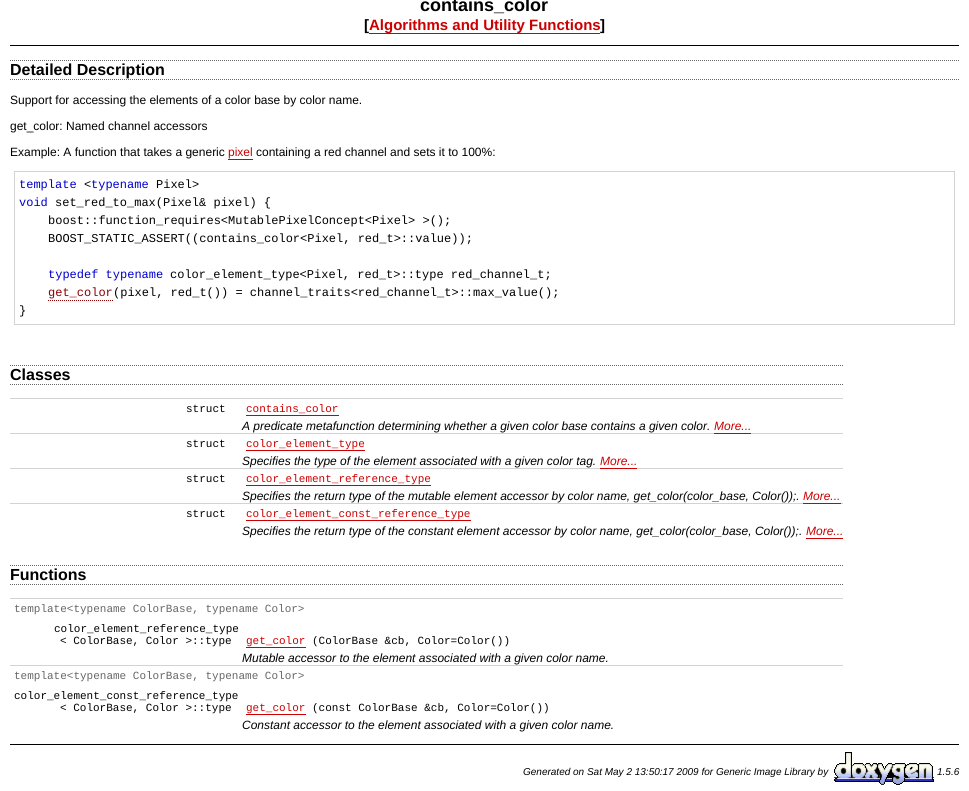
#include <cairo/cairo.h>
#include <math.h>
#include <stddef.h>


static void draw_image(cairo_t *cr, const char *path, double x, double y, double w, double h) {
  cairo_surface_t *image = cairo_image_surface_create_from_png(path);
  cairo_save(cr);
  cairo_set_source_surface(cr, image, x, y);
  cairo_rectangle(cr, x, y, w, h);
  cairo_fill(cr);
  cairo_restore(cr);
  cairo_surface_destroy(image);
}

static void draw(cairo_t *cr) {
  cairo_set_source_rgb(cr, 1, 1, 1);
  cairo_paint(cr);
  cairo_set_source_rgb(cr, 204 / 255.0, 0, 0);
  cairo_rectangle(cr, 369, 33, 231, 1);
  cairo_fill(cr);
  cairo_set_source_rgb(cr, 0, 0, 0);
  cairo_rectangle(cr, 10, 45, 949, 1);
  cairo_fill(cr);
  cairo_new_path(cr);
  cairo_move_to(cr, 10, 60.5);
  cairo_line_to(cr, 959, 60.5);
  cairo_set_source_rgb(cr, 102 / 255.0, 102 / 255.0, 102 / 255.0);
  cairo_set_line_width(cr, 1);
  cairo_set_dash(cr, (double[]){1, 1}, 2, 0);
  cairo_stroke(cr);
  cairo_new_path(cr);
  cairo_move_to(cr, 10, 79.5);
  cairo_line_to(cr, 959, 79.5);
  cairo_stroke(cr);
  cairo_set_source_rgb(cr, 204 / 255.0, 0, 0);
  cairo_rectangle(cr, 228, 159, 25, 1);
  cairo_fill(cr);
  cairo_rectangle(cr, 14.5, 171.5, 940, 153);
  cairo_set_source_rgb(cr, 211 / 255.0, 211 / 255.0, 211 / 255.0);
  cairo_set_dash(cr, NULL, 0, 0);
  cairo_stroke(cr);
  cairo_new_path(cr);
  cairo_move_to(cr, 48, 300.5);
  cairo_line_to(cr, 113, 300.5);
  cairo_set_source_rgb(cr, 139 / 255.0, 0, 0);
  cairo_set_dash(cr, (double[]){1, 1}, 2, 0);
  cairo_stroke(cr);
  cairo_new_path(cr);
  cairo_move_to(cr, 10, 365.5);
  cairo_line_to(cr, 843, 365.5);
  cairo_set_source_rgb(cr, 102 / 255.0, 102 / 255.0, 102 / 255.0);
  cairo_stroke(cr);
  cairo_new_path(cr);
  cairo_move_to(cr, 10, 384.5);
  cairo_line_to(cr, 843, 384.5);
  cairo_stroke(cr);
  cairo_set_source_rgb(cr, 211 / 255.0, 211 / 255.0, 211 / 255.0);
  cairo_rectangle(cr, 10, 398, 833, 1);
  cairo_fill(cr);
  cairo_set_source_rgb(cr, 204 / 255.0, 0, 0);
  cairo_rectangle(cr, 246, 415, 93, 1);
  cairo_fill(cr);
  cairo_set_source_rgb(cr, 211 / 255.0, 211 / 255.0, 211 / 255.0);
  cairo_rectangle(cr, 10, 433, 833, 1);
  cairo_fill(cr);
  cairo_set_source_rgb(cr, 204 / 255.0, 0, 0);
  cairo_rectangle(cr, 714, 433, 37, 1);
  cairo_fill(cr);
  cairo_rectangle(cr, 246, 450, 119, 1);
  cairo_fill(cr);
  cairo_set_source_rgb(cr, 211 / 255.0, 211 / 255.0, 211 / 255.0);
  cairo_rectangle(cr, 10, 468, 833, 1);
  cairo_fill(cr);
  cairo_set_source_rgb(cr, 204 / 255.0, 0, 0);
  cairo_rectangle(cr, 600, 468, 37, 1);
  cairo_fill(cr);
  cairo_rectangle(cr, 246, 485, 185, 1);
  cairo_fill(cr);
  cairo_set_source_rgb(cr, 211 / 255.0, 211 / 255.0, 211 / 255.0);
  cairo_rectangle(cr, 10, 503, 833, 1);
  cairo_fill(cr);
  cairo_set_source_rgb(cr, 204 / 255.0, 0, 0);
  cairo_rectangle(cr, 803, 503, 38, 1);
  cairo_fill(cr);
  cairo_rectangle(cr, 246, 520, 225, 1);
  cairo_fill(cr);
  cairo_rectangle(cr, 806, 538, 37, 1);
  cairo_fill(cr);
  cairo_new_path(cr);
  cairo_move_to(cr, 10, 565.5);
  cairo_line_to(cr, 843, 565.5);
  cairo_set_source_rgb(cr, 102 / 255.0, 102 / 255.0, 102 / 255.0);
  cairo_stroke(cr);
  cairo_new_path(cr);
  cairo_move_to(cr, 10, 584.5);
  cairo_line_to(cr, 843, 584.5);
  cairo_stroke(cr);
  cairo_set_source_rgb(cr, 211 / 255.0, 211 / 255.0, 211 / 255.0);
  cairo_rectangle(cr, 10, 598, 833, 1);
  cairo_fill(cr);
  cairo_set_source_rgb(cr, 204 / 255.0, 0, 0);
  cairo_rectangle(cr, 246, 647, 60, 1);
  cairo_fill(cr);
  cairo_set_source_rgb(cr, 211 / 255.0, 211 / 255.0, 211 / 255.0);
  cairo_rectangle(cr, 10, 665, 833, 1);
  cairo_fill(cr);
  cairo_set_source_rgb(cr, 204 / 255.0, 0, 0);
  cairo_rectangle(cr, 246, 714, 60, 1);
  cairo_fill(cr);
  cairo_set_source_rgb(cr, 0, 0, 0);
  cairo_rectangle(cr, 10, 744, 949, 1);
  cairo_fill(cr);
  cairo_set_source_rgb(cr, 204 / 255.0, 0, 0);
  cairo_rectangle(cr, 834, 777, 100, 1);
  cairo_fill(cr);
  draw_image(cr, "images/1.png", 834, 752, 100, 33);
  cairo_select_font_face(cr, "Liberation Sans", CAIRO_FONT_SLANT_NORMAL, CAIRO_FONT_WEIGHT_BOLD);
  cairo_set_font_size(cr, 18);
  cairo_set_source_rgb(cr, 0, 0, 0);
  cairo_move_to(cr, 420, 11);
  cairo_show_text(cr, "contains_color");
  cairo_set_font_size(cr, 15);
  cairo_move_to(cr, 364, 30);
  cairo_show_text(cr, "[");
  cairo_set_source_rgb(cr, 204 / 255.0, 0, 0);
  cairo_move_to(cr, 369, 30);
  cairo_show_text(cr, "Algorithms and Utility Functions");
  cairo_set_source_rgb(cr, 0, 0, 0);
  cairo_move_to(cr, 600, 30);
  cairo_show_text(cr, "]");
  cairo_set_font_size(cr, 16);
  cairo_move_to(cr, 10, 75);
  cairo_show_text(cr, "Detailed Description");
  cairo_select_font_face(cr, "Liberation Sans", CAIRO_FONT_SLANT_NORMAL, CAIRO_FONT_WEIGHT_NORMAL);
  cairo_set_font_size(cr, 12);
  cairo_move_to(cr, 10, 104);
  cairo_show_text(cr, "Support for accessing the elements of a color base by color name.");
  cairo_move_to(cr, 10, 130);
  cairo_show_text(cr, "get_color: Named channel accessors");
  cairo_move_to(cr, 10, 156);
  cairo_show_text(cr, "Example: A function that takes a generic");
  cairo_set_source_rgb(cr, 204 / 255.0, 0, 0);
  cairo_move_to(cr, 228, 156);
  cairo_show_text(cr, "pixel");
  cairo_set_source_rgb(cr, 0, 0, 0);
  cairo_move_to(cr, 256, 156);
  cairo_show_text(cr, "containing a red channel and sets it to 100%:");
  cairo_select_font_face(cr, "Liberation Mono", CAIRO_FONT_SLANT_NORMAL, CAIRO_FONT_WEIGHT_NORMAL);
  cairo_set_source_rgb(cr, 0, 0, 205 / 255.0);
  cairo_move_to(cr, 19, 188);
  cairo_show_text(cr, "template");
  cairo_set_source_rgb(cr, 0, 0, 0);
  cairo_move_to(cr, 84, 188);
  cairo_show_text(cr, "<");
  cairo_set_source_rgb(cr, 0, 0, 205 / 255.0);
  cairo_move_to(cr, 91, 188);
  cairo_show_text(cr, "typename");
  cairo_set_source_rgb(cr, 0, 0, 0);
  cairo_move_to(cr, 156, 188);
  cairo_show_text(cr, "Pixel>");
  cairo_set_source_rgb(cr, 0, 0, 205 / 255.0);
  cairo_move_to(cr, 19, 206);
  cairo_show_text(cr, "void");
  cairo_set_source_rgb(cr, 0, 0, 0);
  cairo_move_to(cr, 55, 206);
  cairo_show_text(cr, "set_red_to_max(Pixel& pixel) {");
  cairo_move_to(cr, 48, 224);
  cairo_show_text(cr, "boost::function_requires<MutablePixelConcept<Pixel> >();");
  cairo_move_to(cr, 48, 242);
  cairo_show_text(cr, "BOOST_STATIC_ASSERT((contains_color<Pixel, red_t>::value));");
  cairo_set_source_rgb(cr, 0, 0, 205 / 255.0);
  cairo_move_to(cr, 48, 278);
  cairo_show_text(cr, "typedef typename");
  cairo_set_source_rgb(cr, 0, 0, 0);
  cairo_move_to(cr, 170, 278);
  cairo_show_text(cr, "color_element_type<Pixel, red_t>::type red_channel_t;");
  cairo_set_source_rgb(cr, 139 / 255.0, 0, 0);
  cairo_move_to(cr, 48, 296);
  cairo_show_text(cr, "get_color");
  cairo_set_source_rgb(cr, 0, 0, 0);
  cairo_move_to(cr, 113, 296);
  cairo_show_text(cr, "(pixel, red_t()) = channel_traits<red_channel_t>::max_value();");
  cairo_move_to(cr, 19, 314);
  cairo_show_text(cr, "}");
  cairo_select_font_face(cr, "Liberation Sans", CAIRO_FONT_SLANT_NORMAL, CAIRO_FONT_WEIGHT_BOLD);
  cairo_set_font_size(cr, 16);
  cairo_move_to(cr, 10, 380);
  cairo_show_text(cr, "Classes");
  cairo_select_font_face(cr, "Liberation Mono", CAIRO_FONT_SLANT_NORMAL, CAIRO_FONT_WEIGHT_NORMAL);
  cairo_set_font_size(cr, 11);
  cairo_move_to(cr, 186, 412);
  cairo_show_text(cr, "struct");
  cairo_set_source_rgb(cr, 204 / 255.0, 0, 0);
  cairo_move_to(cr, 246, 412);
  cairo_show_text(cr, "contains_color");
  cairo_select_font_face(cr, "Liberation Sans", CAIRO_FONT_SLANT_ITALIC, CAIRO_FONT_WEIGHT_NORMAL);
  cairo_set_font_size(cr, 12);
  cairo_set_source_rgb(cr, 0, 0, 0);
  cairo_move_to(cr, 242, 430);
  cairo_show_text(cr, "A predicate metafunction determining whether a given color base contains a given color.");
  cairo_set_source_rgb(cr, 204 / 255.0, 0, 0);
  cairo_move_to(cr, 714, 430);
  cairo_show_text(cr, "More...");
  cairo_select_font_face(cr, "Liberation Mono", CAIRO_FONT_SLANT_NORMAL, CAIRO_FONT_WEIGHT_NORMAL);
  cairo_set_font_size(cr, 11);
  cairo_set_source_rgb(cr, 0, 0, 0);
  cairo_move_to(cr, 186, 447);
  cairo_show_text(cr, "struct");
  cairo_set_source_rgb(cr, 204 / 255.0, 0, 0);
  cairo_move_to(cr, 246, 447);
  cairo_show_text(cr, "color_element_type");
  cairo_select_font_face(cr, "Liberation Sans", CAIRO_FONT_SLANT_ITALIC, CAIRO_FONT_WEIGHT_NORMAL);
  cairo_set_font_size(cr, 12);
  cairo_set_source_rgb(cr, 0, 0, 0);
  cairo_move_to(cr, 242, 465);
  cairo_show_text(cr, "Specifies the type of the element associated with a given color tag.");
  cairo_set_source_rgb(cr, 204 / 255.0, 0, 0);
  cairo_move_to(cr, 600, 465);
  cairo_show_text(cr, "More...");
  cairo_select_font_face(cr, "Liberation Mono", CAIRO_FONT_SLANT_NORMAL, CAIRO_FONT_WEIGHT_NORMAL);
  cairo_set_font_size(cr, 11);
  cairo_set_source_rgb(cr, 0, 0, 0);
  cairo_move_to(cr, 186, 482);
  cairo_show_text(cr, "struct");
  cairo_set_source_rgb(cr, 204 / 255.0, 0, 0);
  cairo_move_to(cr, 246, 482);
  cairo_show_text(cr, "color_element_reference_type");
  cairo_select_font_face(cr, "Liberation Sans", CAIRO_FONT_SLANT_ITALIC, CAIRO_FONT_WEIGHT_NORMAL);
  cairo_set_font_size(cr, 12);
  cairo_set_source_rgb(cr, 0, 0, 0);
  cairo_move_to(cr, 242, 500);
  cairo_show_text(cr, "Specifies the return type of the mutable element accessor by color name, get_color(color_base, Color());.");
  cairo_set_source_rgb(cr, 204 / 255.0, 0, 0);
  cairo_move_to(cr, 803, 500);
  cairo_show_text(cr, "More...");
  cairo_select_font_face(cr, "Liberation Mono", CAIRO_FONT_SLANT_NORMAL, CAIRO_FONT_WEIGHT_NORMAL);
  cairo_set_font_size(cr, 11);
  cairo_set_source_rgb(cr, 0, 0, 0);
  cairo_move_to(cr, 186, 517);
  cairo_show_text(cr, "struct");
  cairo_set_source_rgb(cr, 204 / 255.0, 0, 0);
  cairo_move_to(cr, 246, 517);
  cairo_show_text(cr, "color_element_const_reference_type");
  cairo_select_font_face(cr, "Liberation Sans", CAIRO_FONT_SLANT_ITALIC, CAIRO_FONT_WEIGHT_NORMAL);
  cairo_set_font_size(cr, 12);
  cairo_set_source_rgb(cr, 0, 0, 0);
  cairo_move_to(cr, 242, 535);
  cairo_show_text(cr, "Specifies the return type of the constant element accessor by color name, get_color(color_base, Color());.");
  cairo_set_source_rgb(cr, 204 / 255.0, 0, 0);
  cairo_move_to(cr, 806, 535);
  cairo_show_text(cr, "More...");
  cairo_select_font_face(cr, "Liberation Sans", CAIRO_FONT_SLANT_NORMAL, CAIRO_FONT_WEIGHT_BOLD);
  cairo_set_font_size(cr, 16);
  cairo_set_source_rgb(cr, 0, 0, 0);
  cairo_move_to(cr, 10, 580);
  cairo_show_text(cr, "Functions");
  cairo_select_font_face(cr, "Liberation Mono", CAIRO_FONT_SLANT_NORMAL, CAIRO_FONT_WEIGHT_NORMAL);
  cairo_set_font_size(cr, 11);
  cairo_set_source_rgb(cr, 102 / 255.0, 102 / 255.0, 102 / 255.0);
  cairo_move_to(cr, 14, 612);
  cairo_show_text(cr, "template<typename ColorBase, typename Color>");
  cairo_set_source_rgb(cr, 0, 0, 0);
  cairo_move_to(cr, 54, 632);
  cairo_show_text(cr, "color_element_reference_type");
  cairo_move_to(cr, 60, 644);
  cairo_show_text(cr, "< ColorBase, Color >::type");
  cairo_set_source_rgb(cr, 204 / 255.0, 0, 0);
  cairo_move_to(cr, 246, 644);
  cairo_show_text(cr, "get_color");
  cairo_set_source_rgb(cr, 0, 0, 0);
  cairo_move_to(cr, 312, 644);
  cairo_show_text(cr, "(ColorBase &cb, Color=Color())");
  cairo_select_font_face(cr, "Liberation Sans", CAIRO_FONT_SLANT_ITALIC, CAIRO_FONT_WEIGHT_NORMAL);
  cairo_set_font_size(cr, 12);
  cairo_move_to(cr, 242, 662);
  cairo_show_text(cr, "Mutable accessor to the element associated with a given color name.");
  cairo_select_font_face(cr, "Liberation Mono", CAIRO_FONT_SLANT_NORMAL, CAIRO_FONT_WEIGHT_NORMAL);
  cairo_set_font_size(cr, 11);
  cairo_set_source_rgb(cr, 102 / 255.0, 102 / 255.0, 102 / 255.0);
  cairo_move_to(cr, 14, 679);
  cairo_show_text(cr, "template<typename ColorBase, typename Color>");
  cairo_set_source_rgb(cr, 0, 0, 0);
  cairo_move_to(cr, 14, 699);
  cairo_show_text(cr, "color_element_const_reference_type");
  cairo_move_to(cr, 60, 711);
  cairo_show_text(cr, "< ColorBase, Color >::type");
  cairo_set_source_rgb(cr, 204 / 255.0, 0, 0);
  cairo_move_to(cr, 246, 711);
  cairo_show_text(cr, "get_color");
  cairo_set_source_rgb(cr, 0, 0, 0);
  cairo_move_to(cr, 312, 711);
  cairo_show_text(cr, "(const ColorBase &cb, Color=Color())");
  cairo_select_font_face(cr, "Liberation Sans", CAIRO_FONT_SLANT_ITALIC, CAIRO_FONT_WEIGHT_NORMAL);
  cairo_set_font_size(cr, 12);
  cairo_move_to(cr, 242, 729);
  cairo_show_text(cr, "Constant accessor to the element associated with a given color name.");
  cairo_set_font_size(cr, 10);
  cairo_move_to(cr, 523, 775);
  cairo_show_text(cr, "Generated on Sat May 2 13:50:17 2009 for Generic Image Library by");
  cairo_move_to(cr, 937, 775);
  cairo_show_text(cr, "1.5.6");
}

int main(void) {
  cairo_surface_t *surface = cairo_image_surface_create(CAIRO_FORMAT_RGB24, 969, 791);
  cairo_t *cr = cairo_create(surface);
  cairo_font_options_t *options = cairo_font_options_create();
  cairo_font_options_set_hint_metrics(options, CAIRO_HINT_METRICS_OFF);
  cairo_font_options_set_hint_style(options, CAIRO_HINT_STYLE_NONE);
  cairo_set_font_options(cr, options);
  cairo_set_miter_limit(cr, 4);
  draw(cr);
  cairo_surface_write_to_png(surface, "out.png");
  cairo_font_options_destroy(options);
  cairo_destroy(cr);
  cairo_surface_destroy(surface);
  return 0;
}
